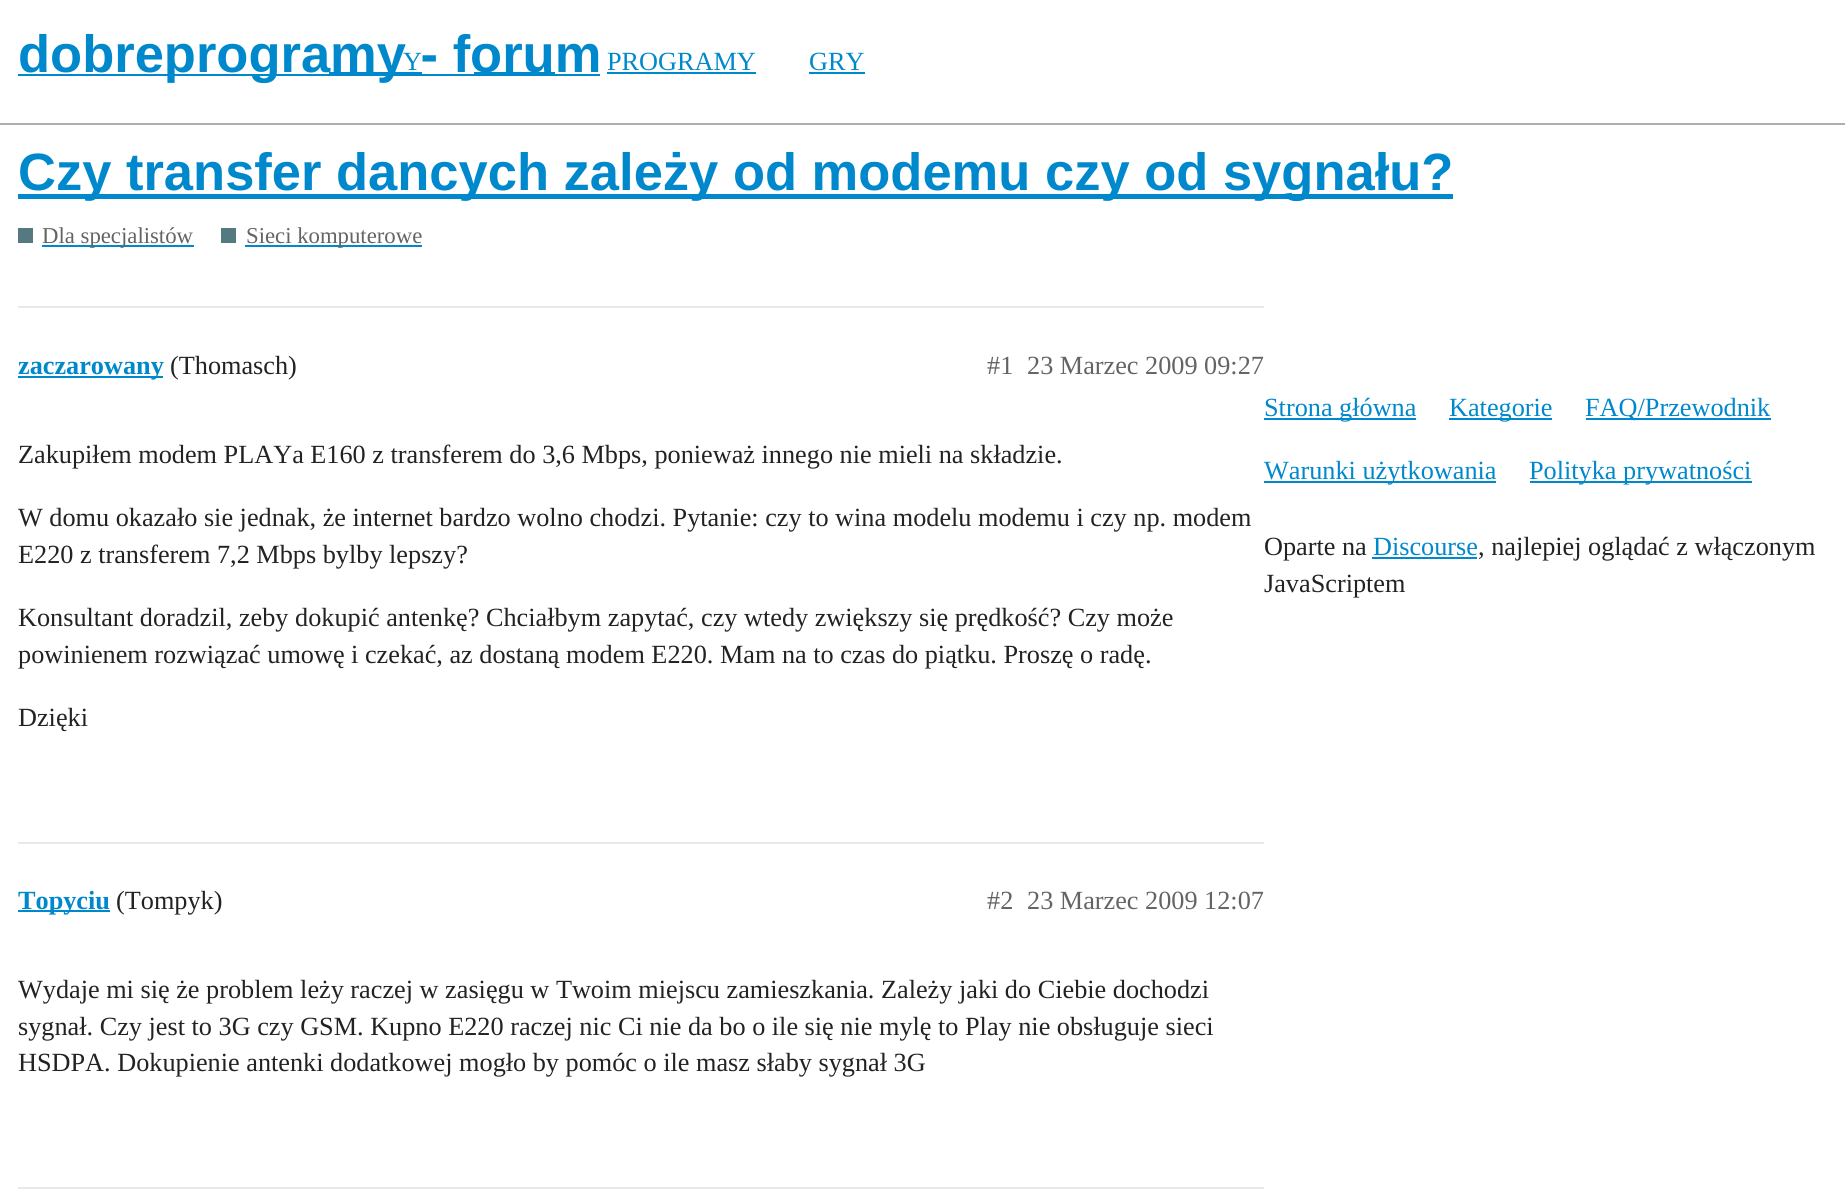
#include <cairo/cairo.h>
#include <math.h>
#include <stddef.h>


static void draw(cairo_t *cr) {
  cairo_set_source_rgb(cr, 1, 1, 1);
  cairo_paint(cr);
  cairo_set_source_rgb(cr, 175 / 255.0, 175 / 255.0, 175 / 255.0);
  cairo_rectangle(cr, 0, 123, 1845, 2);
  cairo_fill(cr);
  cairo_set_source_rgb(cr, 0, 136 / 255.0, 204 / 255.0);
  cairo_rectangle(cr, 18, 74, 582, 2);
  cairo_fill(cr);
  cairo_rectangle(cr, 329, 72, 93, 2);
  cairo_fill(cr);
  cairo_rectangle(cr, 607, 72, 149, 2);
  cairo_fill(cr);
  cairo_rectangle(cr, 809, 72, 56, 2);
  cairo_fill(cr);
  cairo_rectangle(cr, 474, 72, 81, 2);
  cairo_fill(cr);
  cairo_rectangle(cr, 18, 194, 1435, 5);
  cairo_fill(cr);
  cairo_set_source_rgb(cr, 84 / 255.0, 121 / 255.0, 128 / 255.0);
  cairo_rectangle(cr, 18, 228, 15, 15);
  cairo_fill(cr);
  cairo_set_source_rgb(cr, 0, 136 / 255.0, 204 / 255.0);
  cairo_rectangle(cr, 42, 245, 152, 2);
  cairo_fill(cr);
  cairo_set_source_rgb(cr, 84 / 255.0, 121 / 255.0, 128 / 255.0);
  cairo_rectangle(cr, 221, 228, 15, 15);
  cairo_fill(cr);
  cairo_set_source_rgb(cr, 0, 136 / 255.0, 204 / 255.0);
  cairo_rectangle(cr, 245, 245, 177, 2);
  cairo_fill(cr);
  cairo_set_source_rgb(cr, 233 / 255.0, 233 / 255.0, 233 / 255.0);
  cairo_rectangle(cr, 18, 306, 1246, 2);
  cairo_fill(cr);
  cairo_set_source_rgb(cr, 0, 136 / 255.0, 204 / 255.0);
  cairo_rectangle(cr, 18, 376, 145, 2);
  cairo_fill(cr);
  cairo_set_source_rgb(cr, 233 / 255.0, 233 / 255.0, 233 / 255.0);
  cairo_rectangle(cr, 18, 842, 1246, 2);
  cairo_fill(cr);
  cairo_set_source_rgb(cr, 0, 136 / 255.0, 204 / 255.0);
  cairo_rectangle(cr, 18, 910, 92, 2);
  cairo_fill(cr);
  cairo_set_source_rgb(cr, 233 / 255.0, 233 / 255.0, 233 / 255.0);
  cairo_rectangle(cr, 18, 1187, 1246, 2);
  cairo_fill(cr);
  cairo_set_source_rgb(cr, 0, 136 / 255.0, 204 / 255.0);
  cairo_rectangle(cr, 1264, 418, 152, 2);
  cairo_fill(cr);
  cairo_rectangle(cr, 1449, 418, 103, 2);
  cairo_fill(cr);
  cairo_rectangle(cr, 1586, 418, 185, 2);
  cairo_fill(cr);
  cairo_rectangle(cr, 1264, 481, 232, 2);
  cairo_fill(cr);
  cairo_rectangle(cr, 1530, 481, 222, 2);
  cairo_fill(cr);
  cairo_rectangle(cr, 1372, 557, 105, 2);
  cairo_fill(cr);
  cairo_select_font_face(cr, "Liberation Sans", CAIRO_FONT_SLANT_NORMAL, CAIRO_FONT_WEIGHT_BOLD);
  cairo_set_font_size(cr, 52.5);
  cairo_move_to(cr, 18, 72);
  cairo_show_text(cr, "dobreprogramy - forum");
  cairo_select_font_face(cr, "Liberation Serif", CAIRO_FONT_SLANT_NORMAL, CAIRO_FONT_WEIGHT_NORMAL);
  cairo_set_font_size(cr, 26.25);
  cairo_move_to(cr, 403, 70);
  cairo_show_text(cr, "Y");
  cairo_move_to(cr, 607, 70);
  cairo_show_text(cr, "PROGRAMY");
  cairo_move_to(cr, 809, 70);
  cairo_show_text(cr, "GRY");
  cairo_select_font_face(cr, "Liberation Sans", CAIRO_FONT_SLANT_NORMAL, CAIRO_FONT_WEIGHT_BOLD);
  cairo_set_font_size(cr, 52.5);
  cairo_move_to(cr, 18, 190);
  cairo_show_text(cr, "Czy transfer dancych zależy od modemu czy od sygnału?");
  cairo_select_font_face(cr, "Liberation Serif", CAIRO_FONT_SLANT_NORMAL, CAIRO_FONT_WEIGHT_NORMAL);
  cairo_set_font_size(cr, 22.75);
  cairo_set_source_rgb(cr, 100 / 255.0, 100 / 255.0, 100 / 255.0);
  cairo_move_to(cr, 42, 243);
  cairo_show_text(cr, "Dla specjalistów");
  cairo_move_to(cr, 246, 243);
  cairo_show_text(cr, "Sieci komputerowe");
  cairo_select_font_face(cr, "Liberation Serif", CAIRO_FONT_SLANT_NORMAL, CAIRO_FONT_WEIGHT_BOLD);
  cairo_set_font_size(cr, 26.25);
  cairo_set_source_rgb(cr, 0, 136 / 255.0, 204 / 255.0);
  cairo_move_to(cr, 18, 374);
  cairo_show_text(cr, "zaczarowany");
  cairo_select_font_face(cr, "Liberation Serif", CAIRO_FONT_SLANT_NORMAL, CAIRO_FONT_WEIGHT_NORMAL);
  cairo_set_source_rgb(cr, 34 / 255.0, 34 / 255.0, 34 / 255.0);
  cairo_move_to(cr, 170, 374);
  cairo_show_text(cr, "(Thomasch)");
  cairo_set_source_rgb(cr, 100 / 255.0, 100 / 255.0, 100 / 255.0);
  cairo_move_to(cr, 987, 374);
  cairo_show_text(cr, "#1");
  cairo_move_to(cr, 1027, 374);
  cairo_show_text(cr, "23 Marzec 2009 09:27");
  cairo_set_source_rgb(cr, 34 / 255.0, 34 / 255.0, 34 / 255.0);
  cairo_move_to(cr, 18, 463);
  cairo_show_text(cr, "Zakupiłem modem PLAYa E160 z transferem do 3,6 Mbps, ponieważ innego nie mieli na składzie.");
  cairo_move_to(cr, 18, 526);
  cairo_show_text(cr, "W domu okazało sie jednak, że internet bardzo wolno chodzi. Pytanie: czy to wina modelu modemu i czy np. modem");
  cairo_move_to(cr, 18, 563);
  cairo_show_text(cr, "E220 z transferem 7,2 Mbps bylby lepszy?");
  cairo_move_to(cr, 18, 626);
  cairo_show_text(cr, "Konsultant doradzil, zeby dokupić antenkę? Chciałbym zapytać, czy wtedy zwiększy się prędkość? Czy może");
  cairo_move_to(cr, 18, 663);
  cairo_show_text(cr, "powinienem rozwiązać umowę i czekać, az dostaną modem E220. Mam na to czas do piątku. Proszę o radę.");
  cairo_move_to(cr, 18, 726);
  cairo_show_text(cr, "Dzięki");
  cairo_select_font_face(cr, "Liberation Serif", CAIRO_FONT_SLANT_NORMAL, CAIRO_FONT_WEIGHT_BOLD);
  cairo_set_source_rgb(cr, 0, 136 / 255.0, 204 / 255.0);
  cairo_move_to(cr, 18, 909);
  cairo_show_text(cr, "Topyciu");
  cairo_select_font_face(cr, "Liberation Serif", CAIRO_FONT_SLANT_NORMAL, CAIRO_FONT_WEIGHT_NORMAL);
  cairo_set_source_rgb(cr, 34 / 255.0, 34 / 255.0, 34 / 255.0);
  cairo_move_to(cr, 116, 909);
  cairo_show_text(cr, "(Tompyk)");
  cairo_set_source_rgb(cr, 100 / 255.0, 100 / 255.0, 100 / 255.0);
  cairo_move_to(cr, 987, 909);
  cairo_show_text(cr, "#2");
  cairo_move_to(cr, 1027, 909);
  cairo_show_text(cr, "23 Marzec 2009 12:07");
  cairo_set_source_rgb(cr, 34 / 255.0, 34 / 255.0, 34 / 255.0);
  cairo_move_to(cr, 18, 998);
  cairo_show_text(cr, "Wydaje mi się że problem leży raczej w zasięgu w Twoim miejscu zamieszkania. Zależy jaki do Ciebie dochodzi");
  cairo_move_to(cr, 18, 1035);
  cairo_show_text(cr, "sygnał. Czy jest to 3G czy GSM. Kupno E220 raczej nic Ci nie da bo o ile się nie mylę to Play nie obsługuje sieci");
  cairo_move_to(cr, 18, 1071);
  cairo_show_text(cr, "HSDPA. Dokupienie antenki dodatkowej mogło by pomóc o ile masz słaby sygnał 3G");
  cairo_set_source_rgb(cr, 0, 136 / 255.0, 204 / 255.0);
  cairo_move_to(cr, 1264, 416);
  cairo_show_text(cr, "Strona główna");
  cairo_move_to(cr, 1449, 416);
  cairo_show_text(cr, "Kategorie");
  cairo_move_to(cr, 1585, 416);
  cairo_show_text(cr, "FAQ/Przewodnik");
  cairo_move_to(cr, 1264, 479);
  cairo_show_text(cr, "Warunki użytkowania");
  cairo_move_to(cr, 1529, 479);
  cairo_show_text(cr, "Polityka prywatności");
  cairo_set_source_rgb(cr, 34 / 255.0, 34 / 255.0, 34 / 255.0);
  cairo_move_to(cr, 1264, 555);
  cairo_show_text(cr, "Oparte na");
  cairo_set_source_rgb(cr, 0, 136 / 255.0, 204 / 255.0);
  cairo_move_to(cr, 1373, 555);
  cairo_show_text(cr, "Discourse");
  cairo_set_source_rgb(cr, 34 / 255.0, 34 / 255.0, 34 / 255.0);
  cairo_move_to(cr, 1478, 555);
  cairo_show_text(cr, ", najlepiej oglądać z włączonym");
  cairo_move_to(cr, 1264, 592);
  cairo_show_text(cr, "JavaScriptem");
}

int main(void) {
  cairo_surface_t *surface = cairo_image_surface_create(CAIRO_FORMAT_RGB24, 1845, 1195);
  cairo_t *cr = cairo_create(surface);
  cairo_font_options_t *options = cairo_font_options_create();
  cairo_font_options_set_hint_metrics(options, CAIRO_HINT_METRICS_OFF);
  cairo_font_options_set_hint_style(options, CAIRO_HINT_STYLE_NONE);
  cairo_set_font_options(cr, options);
  cairo_set_miter_limit(cr, 4);
  draw(cr);
  cairo_surface_write_to_png(surface, "out.png");
  cairo_font_options_destroy(options);
  cairo_destroy(cr);
  cairo_surface_destroy(surface);
  return 0;
}
